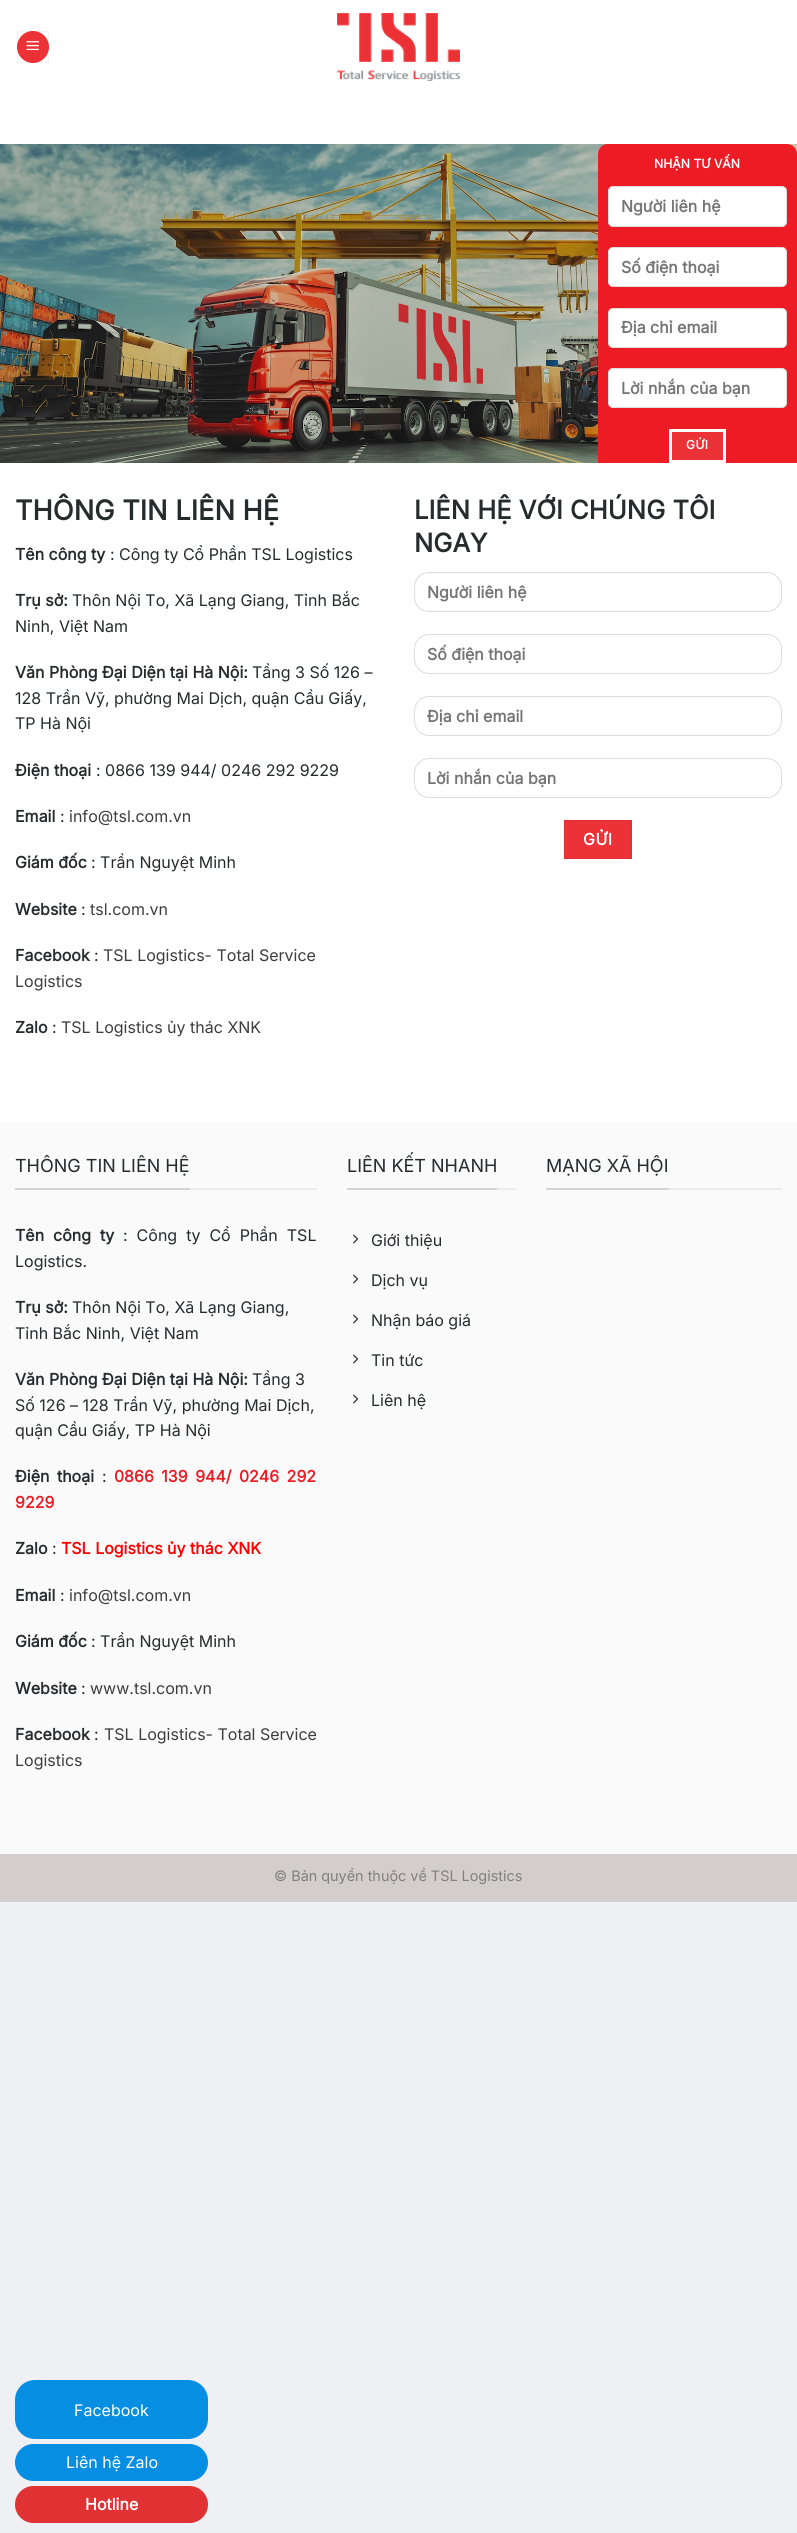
#include <cairo/cairo.h>
#include <math.h>
#include <stddef.h>


static void draw_spaced(cairo_t *cr, double x, double y, const char *s, double letter, double word) {
  cairo_move_to(cr, x, y);
  while (*s) {
    char ch[5] = {0};
    int n = 0;
    do ch[n++] = *s++; while ((*s & 0xC0) == 0x80);
    cairo_show_text(cr, ch);
    cairo_rel_move_to(cr, letter + word * (*ch == ' '), 0);
  }
}

static void rounded_rect(cairo_t *cr, double x, double y, double w, double h, double r) {
  cairo_new_sub_path(cr);
  cairo_arc(cr, x + w - r, y + h - r, r, 0, M_PI / 2);
  cairo_arc(cr, x + r, y + h - r, r, M_PI / 2, M_PI);
  cairo_arc(cr, x + r, y + r, r, M_PI, 1.5 * M_PI);
  cairo_arc(cr, x + w - r, y + r, r, 1.5 * M_PI, 2 * M_PI);
  cairo_close_path(cr);
}

static void draw_image(cairo_t *cr, const char *path, double x, double y, double w, double h) {
  cairo_surface_t *image = cairo_image_surface_create_from_png(path);
  cairo_save(cr);
  cairo_set_source_surface(cr, image, x, y);
  cairo_rectangle(cr, x, y, w, h);
  cairo_fill(cr);
  cairo_restore(cr);
  cairo_surface_destroy(image);
}

static void draw(cairo_t *cr) {
  cairo_set_source_rgb(cr, 239 / 255.0, 240 / 255.0, 243 / 255.0);
  cairo_paint(cr);
  cairo_set_source_rgb(cr, 1, 1, 1);
  cairo_rectangle(cr, 0, 0, 797, 1122);
  cairo_fill(cr);
  cairo_set_source_rgb(cr, 237 / 255.0, 50 / 255.0, 55 / 255.0);
  cairo_arc(cr, 33, 47, 16, 0, 2 * M_PI);
  cairo_fill(cr);
  cairo_rectangle(cr, 17.5, 31.5, 31, 31);
  cairo_set_source_rgba(cr, 0, 0, 0, 0.05);
  cairo_set_line_width(cr, 1);
  cairo_stroke(cr);
  draw_image(cr, "images/1.png", 26, 41, 13, 10);
  draw_image(cr, "images/2.png", 337, 13, 123, 68);
  draw_image(cr, "images/3.png", 0, 144, 797, 319);
  cairo_set_source_rgb(cr, 237 / 255.0, 28 / 255.0, 36 / 255.0);
  cairo_new_path(cr);
  cairo_move_to(cr, 608, 144);
  cairo_line_to(cr, 787, 144);
  cairo_curve_to(cr, 792.5, 144, 797, 148.5, 797, 154);
  cairo_line_to(cr, 797, 463);
  cairo_line_to(cr, 598, 463);
  cairo_line_to(cr, 598, 154);
  cairo_curve_to(cr, 598, 148.5, 602.5, 144, 608, 144);
  cairo_close_path(cr);
  cairo_fill(cr);
  cairo_set_source_rgb(cr, 1, 1, 1);
  rounded_rect(cr, 608.5, 186.5, 178, 40, 4.5);
  cairo_fill_preserve(cr);
  cairo_set_source_rgb(cr, 221 / 255.0, 221 / 255.0, 221 / 255.0);
  cairo_stroke(cr);
  cairo_set_source_rgb(cr, 1, 1, 1);
  rounded_rect(cr, 608.5, 247.5, 178, 39, 4.5);
  cairo_fill_preserve(cr);
  cairo_set_source_rgb(cr, 221 / 255.0, 221 / 255.0, 221 / 255.0);
  cairo_stroke(cr);
  cairo_set_source_rgb(cr, 1, 1, 1);
  rounded_rect(cr, 608.5, 308.5, 178, 39, 4.5);
  cairo_fill_preserve(cr);
  cairo_set_source_rgb(cr, 221 / 255.0, 221 / 255.0, 221 / 255.0);
  cairo_stroke(cr);
  cairo_set_source_rgb(cr, 1, 1, 1);
  rounded_rect(cr, 608.5, 368.5, 178, 39, 4.5);
  cairo_fill_preserve(cr);
  cairo_set_source_rgb(cr, 221 / 255.0, 221 / 255.0, 221 / 255.0);
  cairo_stroke(cr);
  cairo_set_source_rgb(cr, 237 / 255.0, 50 / 255.0, 55 / 255.0);
  cairo_rectangle(cr, 670.5, 430.5, 54, 31);
  cairo_fill_preserve(cr);
  cairo_set_source_rgb(cr, 1, 1, 1);
  cairo_set_line_width(cr, 3);
  cairo_stroke(cr);
  rounded_rect(cr, 414.5, 572.5, 367, 39, 14.5);
  cairo_set_source_rgb(cr, 221 / 255.0, 221 / 255.0, 221 / 255.0);
  cairo_set_line_width(cr, 1);
  cairo_stroke(cr);
  rounded_rect(cr, 414.5, 634.5, 367, 39, 14.5);
  cairo_stroke(cr);
  rounded_rect(cr, 414.5, 696.5, 367, 39, 14.5);
  cairo_stroke(cr);
  rounded_rect(cr, 414.5, 758.5, 367, 39, 14.5);
  cairo_stroke(cr);
  cairo_set_source_rgb(cr, 237 / 255.0, 50 / 255.0, 55 / 255.0);
  cairo_rectangle(cr, 564.5, 820.5, 67, 38);
  cairo_fill_preserve(cr);
  cairo_set_source_rgb(cr, 225 / 255.0, 48 / 255.0, 52 / 255.0);
  cairo_stroke(cr);
  cairo_set_source_rgb(cr, 250 / 255.0, 250 / 255.0, 250 / 255.0);
  cairo_rectangle(cr, 0, 1122, 797, 732);
  cairo_fill(cr);
  cairo_set_source_rgb(cr, 236 / 255.0, 236 / 255.0, 236 / 255.0);
  cairo_rectangle(cr, 190, 1188, 127, 2);
  cairo_fill(cr);
  cairo_set_source_rgb(cr, 212 / 255.0, 212 / 255.0, 212 / 255.0);
  cairo_rectangle(cr, 15, 1188, 175, 2);
  cairo_fill(cr);
  cairo_set_source_rgb(cr, 236 / 255.0, 236 / 255.0, 236 / 255.0);
  cairo_rectangle(cr, 497, 1188, 19, 2);
  cairo_fill(cr);
  cairo_set_source_rgb(cr, 212 / 255.0, 212 / 255.0, 212 / 255.0);
  cairo_rectangle(cr, 347, 1188, 150, 2);
  cairo_fill(cr);
  draw_image(cr, "images/4.png", 353, 1234, 6, 10);
  draw_image(cr, "images/4.png", 353, 1274, 6, 10);
  draw_image(cr, "images/4.png", 353, 1314, 6, 10);
  draw_image(cr, "images/4.png", 353, 1354, 6, 10);
  draw_image(cr, "images/4.png", 353, 1394, 6, 10);
  cairo_set_source_rgb(cr, 236 / 255.0, 236 / 255.0, 236 / 255.0);
  cairo_rectangle(cr, 669, 1188, 113, 2);
  cairo_fill(cr);
  cairo_set_source_rgb(cr, 212 / 255.0, 212 / 255.0, 212 / 255.0);
  cairo_rectangle(cr, 546, 1188, 123, 2);
  cairo_fill(cr);
  cairo_set_source_rgb(cr, 211 / 255.0, 205 / 255.0, 205 / 255.0);
  cairo_rectangle(cr, 0, 1854, 797, 48);
  cairo_fill(cr);
  cairo_set_source_rgb(cr, 5 / 255.0, 142 / 255.0, 226 / 255.0);
  rounded_rect(cr, 15, 2380, 193, 59, 20);
  cairo_fill(cr);
  rounded_rect(cr, 15, 2444, 193, 37, 18.5);
  cairo_fill(cr);
  cairo_set_source_rgb(cr, 224 / 255.0, 50 / 255.0, 50 / 255.0);
  rounded_rect(cr, 15, 2486, 193, 37, 18.5);
  cairo_fill(cr);
  cairo_select_font_face(cr, "Inter", CAIRO_FONT_SLANT_NORMAL, CAIRO_FONT_WEIGHT_BOLD);
  cairo_set_font_size(cr, 12.25);
  cairo_set_source_rgb(cr, 1, 1, 1);
  cairo_move_to(cr, 654, 168);
  cairo_show_text(cr, "NHẬN TƯ VẤN");
  cairo_set_font_size(cr, 16);
  cairo_set_source_rgb(cr, 117 / 255.0, 117 / 255.0, 117 / 255.0);
  cairo_move_to(cr, 621, 212);
  cairo_show_text(cr, "Người liên hệ");
  cairo_move_to(cr, 621, 273);
  cairo_show_text(cr, "Số điện thoại");
  cairo_move_to(cr, 621, 333);
  cairo_show_text(cr, "Địa chỉ email");
  cairo_move_to(cr, 621, 394);
  cairo_show_text(cr, "Lời nhắn của bạn");
  cairo_set_font_size(cr, 12);
  cairo_set_source_rgb(cr, 1, 1, 1);
  draw_spaced(cr, 686, 449, "GỬI", 0.5, 0);
  cairo_set_font_size(cr, 27.25);
  cairo_set_source_rgb(cr, 38 / 255.0, 43 / 255.0, 43 / 255.0);
  cairo_move_to(cr, 15, 520);
  cairo_show_text(cr, "THÔNG TIN LIÊN HỆ");
  cairo_set_font_size(cr, 16);
  cairo_move_to(cr, 15, 560);
  cairo_show_text(cr, "Tên công ty");
  cairo_select_font_face(cr, "Inter", CAIRO_FONT_SLANT_NORMAL, CAIRO_FONT_WEIGHT_NORMAL);
  cairo_move_to(cr, 110, 560);
  cairo_show_text(cr, ": Công ty Cổ Phần TSL Logistics");
  cairo_select_font_face(cr, "Inter", CAIRO_FONT_SLANT_NORMAL, CAIRO_FONT_WEIGHT_BOLD);
  cairo_move_to(cr, 15, 606);
  cairo_show_text(cr, "Trụ sở:");
  cairo_select_font_face(cr, "Inter", CAIRO_FONT_SLANT_NORMAL, CAIRO_FONT_WEIGHT_NORMAL);
  cairo_move_to(cr, 72, 606);
  cairo_show_text(cr, "Thôn Nội To, Xã Lạng Giang, Tỉnh Bắc");
  cairo_move_to(cr, 15, 632);
  cairo_show_text(cr, "Ninh, Việt Nam");
  cairo_select_font_face(cr, "Inter", CAIRO_FONT_SLANT_NORMAL, CAIRO_FONT_WEIGHT_BOLD);
  cairo_move_to(cr, 15, 678);
  cairo_show_text(cr, "Văn Phòng Đại Diện tại Hà Nội:");
  cairo_select_font_face(cr, "Inter", CAIRO_FONT_SLANT_NORMAL, CAIRO_FONT_WEIGHT_NORMAL);
  cairo_move_to(cr, 252, 678);
  cairo_show_text(cr, "Tầng 3 Số 126 –");
  cairo_move_to(cr, 15, 704);
  cairo_show_text(cr, "128 Trần Vỹ, phường Mai Dịch, quận Cầu Giấy,");
  cairo_move_to(cr, 15, 729);
  cairo_show_text(cr, "TP Hà Nội");
  cairo_select_font_face(cr, "Inter", CAIRO_FONT_SLANT_NORMAL, CAIRO_FONT_WEIGHT_BOLD);
  cairo_move_to(cr, 15, 776);
  cairo_show_text(cr, "Điện thoại");
  cairo_select_font_face(cr, "Inter", CAIRO_FONT_SLANT_NORMAL, CAIRO_FONT_WEIGHT_NORMAL);
  cairo_move_to(cr, 96, 776);
  cairo_show_text(cr, ": 0866 139 944/ 0246 292 9229");
  cairo_select_font_face(cr, "Inter", CAIRO_FONT_SLANT_NORMAL, CAIRO_FONT_WEIGHT_BOLD);
  cairo_move_to(cr, 15, 822);
  cairo_show_text(cr, "Email");
  cairo_select_font_face(cr, "Inter", CAIRO_FONT_SLANT_NORMAL, CAIRO_FONT_WEIGHT_NORMAL);
  cairo_move_to(cr, 60, 822);
  cairo_show_text(cr, ":");
  cairo_set_source_rgb(cr, 61 / 255.0, 61 / 255.0, 61 / 255.0);
  cairo_move_to(cr, 69, 822);
  cairo_show_text(cr, "info@tsl.com.vn");
  cairo_select_font_face(cr, "Inter", CAIRO_FONT_SLANT_NORMAL, CAIRO_FONT_WEIGHT_BOLD);
  cairo_set_source_rgb(cr, 38 / 255.0, 43 / 255.0, 43 / 255.0);
  cairo_move_to(cr, 15, 868);
  cairo_show_text(cr, "Giám đốc");
  cairo_select_font_face(cr, "Inter", CAIRO_FONT_SLANT_NORMAL, CAIRO_FONT_WEIGHT_NORMAL);
  cairo_move_to(cr, 91, 868);
  cairo_show_text(cr, ": Trần Nguyệt Minh");
  cairo_select_font_face(cr, "Inter", CAIRO_FONT_SLANT_NORMAL, CAIRO_FONT_WEIGHT_BOLD);
  cairo_move_to(cr, 15, 915);
  cairo_show_text(cr, "Website");
  cairo_select_font_face(cr, "Inter", CAIRO_FONT_SLANT_NORMAL, CAIRO_FONT_WEIGHT_NORMAL);
  cairo_move_to(cr, 81, 915);
  cairo_show_text(cr, ":");
  cairo_set_source_rgb(cr, 61 / 255.0, 61 / 255.0, 61 / 255.0);
  cairo_move_to(cr, 90, 915);
  cairo_show_text(cr, "tsl.com.vn");
  cairo_select_font_face(cr, "Inter", CAIRO_FONT_SLANT_NORMAL, CAIRO_FONT_WEIGHT_BOLD);
  cairo_set_source_rgb(cr, 38 / 255.0, 43 / 255.0, 43 / 255.0);
  cairo_move_to(cr, 15, 961);
  cairo_show_text(cr, "Facebook");
  cairo_select_font_face(cr, "Inter", CAIRO_FONT_SLANT_NORMAL, CAIRO_FONT_WEIGHT_NORMAL);
  cairo_move_to(cr, 94, 961);
  cairo_show_text(cr, ":");
  cairo_set_source_rgb(cr, 61 / 255.0, 61 / 255.0, 61 / 255.0);
  cairo_move_to(cr, 103, 961);
  cairo_show_text(cr, "TSL Logistics- Total Service");
  cairo_move_to(cr, 15, 987);
  cairo_show_text(cr, "Logistics");
  cairo_select_font_face(cr, "Inter", CAIRO_FONT_SLANT_NORMAL, CAIRO_FONT_WEIGHT_BOLD);
  cairo_set_source_rgb(cr, 38 / 255.0, 43 / 255.0, 43 / 255.0);
  cairo_move_to(cr, 15, 1033);
  cairo_show_text(cr, "Zalo");
  cairo_select_font_face(cr, "Inter", CAIRO_FONT_SLANT_NORMAL, CAIRO_FONT_WEIGHT_NORMAL);
  cairo_move_to(cr, 52, 1033);
  cairo_show_text(cr, ":");
  cairo_set_source_rgb(cr, 61 / 255.0, 61 / 255.0, 61 / 255.0);
  cairo_move_to(cr, 61, 1033);
  cairo_show_text(cr, "TSL Logistics ủy thác XNK");
  cairo_select_font_face(cr, "Inter", CAIRO_FONT_SLANT_NORMAL, CAIRO_FONT_WEIGHT_BOLD);
  cairo_set_font_size(cr, 25.6);
  cairo_set_source_rgb(cr, 38 / 255.0, 43 / 255.0, 43 / 255.0);
  cairo_move_to(cr, 414, 519);
  cairo_show_text(cr, "LIÊN HỆ VỚI CHÚNG TÔI");
  cairo_move_to(cr, 414, 552);
  cairo_show_text(cr, "NGAY");
  cairo_set_font_size(cr, 16);
  cairo_set_source_rgb(cr, 117 / 255.0, 117 / 255.0, 117 / 255.0);
  cairo_move_to(cr, 427, 598);
  cairo_show_text(cr, "Người liên hệ");
  cairo_move_to(cr, 427, 660);
  cairo_show_text(cr, "Số điện thoại");
  cairo_move_to(cr, 427, 722);
  cairo_show_text(cr, "Địa chỉ email");
  cairo_move_to(cr, 427, 784);
  cairo_show_text(cr, "Lời nhắn của bạn");
  cairo_set_source_rgb(cr, 1, 1, 1);
  draw_spaced(cr, 583, 845, "GỬI", 0.5, 0);
  cairo_select_font_face(cr, "Inter", CAIRO_FONT_SLANT_NORMAL, CAIRO_FONT_WEIGHT_NORMAL);
  cairo_set_font_size(cr, 18);
  cairo_set_source_rgb(cr, 38 / 255.0, 43 / 255.0, 43 / 255.0);
  cairo_move_to(cr, 15, 1172);
  cairo_show_text(cr, "THÔNG TIN LIÊN HỆ");
  cairo_select_font_face(cr, "Inter", CAIRO_FONT_SLANT_NORMAL, CAIRO_FONT_WEIGHT_BOLD);
  cairo_set_font_size(cr, 16);
  draw_spaced(cr, 15, 1241, "Tên công ty", 0, 4.5);
  cairo_select_font_face(cr, "Inter", CAIRO_FONT_SLANT_NORMAL, CAIRO_FONT_WEIGHT_NORMAL);
  draw_spaced(cr, 123, 1241, ": Công ty Cổ Phần TSL", 0, 4.5);
  cairo_move_to(cr, 15, 1267);
  cairo_show_text(cr, "Logistics.");
  cairo_select_font_face(cr, "Inter", CAIRO_FONT_SLANT_NORMAL, CAIRO_FONT_WEIGHT_BOLD);
  cairo_move_to(cr, 15, 1313);
  cairo_show_text(cr, "Trụ sở:");
  cairo_select_font_face(cr, "Inter", CAIRO_FONT_SLANT_NORMAL, CAIRO_FONT_WEIGHT_NORMAL);
  cairo_move_to(cr, 72, 1313);
  cairo_show_text(cr, "Thôn Nội To, Xã Lạng Giang,");
  cairo_move_to(cr, 15, 1339);
  cairo_show_text(cr, "Tỉnh Bắc Ninh, Việt Nam");
  cairo_select_font_face(cr, "Inter", CAIRO_FONT_SLANT_NORMAL, CAIRO_FONT_WEIGHT_BOLD);
  cairo_move_to(cr, 15, 1385);
  cairo_show_text(cr, "Văn Phòng Đại Diện tại Hà Nội:");
  cairo_select_font_face(cr, "Inter", CAIRO_FONT_SLANT_NORMAL, CAIRO_FONT_WEIGHT_NORMAL);
  cairo_move_to(cr, 252, 1385);
  cairo_show_text(cr, "Tầng 3");
  cairo_move_to(cr, 15, 1411);
  cairo_show_text(cr, "Số 126 – 128 Trần Vỹ, phường Mai Dịch,");
  cairo_move_to(cr, 15, 1436);
  cairo_show_text(cr, "quận Cầu Giấy, TP Hà Nội");
  cairo_select_font_face(cr, "Inter", CAIRO_FONT_SLANT_NORMAL, CAIRO_FONT_WEIGHT_BOLD);
  draw_spaced(cr, 15, 1482, "Điện thoại", 0, 3);
  cairo_select_font_face(cr, "Inter", CAIRO_FONT_SLANT_NORMAL, CAIRO_FONT_WEIGHT_NORMAL);
  cairo_move_to(cr, 102, 1482);
  cairo_show_text(cr, ":");
  cairo_select_font_face(cr, "Inter", CAIRO_FONT_SLANT_NORMAL, CAIRO_FONT_WEIGHT_BOLD);
  cairo_set_source_rgb(cr, 237 / 255.0, 28 / 255.0, 36 / 255.0);
  draw_spaced(cr, 114, 1482, "0866 139 944/ 0246 292", 0, 3);
  cairo_move_to(cr, 15, 1508);
  cairo_show_text(cr, "9229");
  cairo_set_source_rgb(cr, 38 / 255.0, 43 / 255.0, 43 / 255.0);
  cairo_move_to(cr, 15, 1554);
  cairo_show_text(cr, "Zalo");
  cairo_select_font_face(cr, "Inter", CAIRO_FONT_SLANT_NORMAL, CAIRO_FONT_WEIGHT_NORMAL);
  cairo_move_to(cr, 52, 1554);
  cairo_show_text(cr, ":");
  cairo_select_font_face(cr, "Inter", CAIRO_FONT_SLANT_NORMAL, CAIRO_FONT_WEIGHT_BOLD);
  cairo_set_source_rgb(cr, 1, 0, 0);
  cairo_move_to(cr, 61, 1554);
  cairo_show_text(cr, "TSL Logistics ủy thác XNK");
  cairo_set_source_rgb(cr, 38 / 255.0, 43 / 255.0, 43 / 255.0);
  cairo_move_to(cr, 15, 1601);
  cairo_show_text(cr, "Email");
  cairo_select_font_face(cr, "Inter", CAIRO_FONT_SLANT_NORMAL, CAIRO_FONT_WEIGHT_NORMAL);
  cairo_move_to(cr, 60, 1601);
  cairo_show_text(cr, ":");
  cairo_set_source_rgb(cr, 61 / 255.0, 61 / 255.0, 61 / 255.0);
  cairo_move_to(cr, 69, 1601);
  cairo_show_text(cr, "info@tsl.com.vn");
  cairo_select_font_face(cr, "Inter", CAIRO_FONT_SLANT_NORMAL, CAIRO_FONT_WEIGHT_BOLD);
  cairo_set_source_rgb(cr, 38 / 255.0, 43 / 255.0, 43 / 255.0);
  cairo_move_to(cr, 15, 1647);
  cairo_show_text(cr, "Giám đốc");
  cairo_select_font_face(cr, "Inter", CAIRO_FONT_SLANT_NORMAL, CAIRO_FONT_WEIGHT_NORMAL);
  cairo_move_to(cr, 91, 1647);
  cairo_show_text(cr, ": Trần Nguyệt Minh");
  cairo_select_font_face(cr, "Inter", CAIRO_FONT_SLANT_NORMAL, CAIRO_FONT_WEIGHT_BOLD);
  cairo_move_to(cr, 15, 1694);
  cairo_show_text(cr, "Website");
  cairo_select_font_face(cr, "Inter", CAIRO_FONT_SLANT_NORMAL, CAIRO_FONT_WEIGHT_NORMAL);
  cairo_move_to(cr, 81, 1694);
  cairo_show_text(cr, ":");
  cairo_set_source_rgb(cr, 61 / 255.0, 61 / 255.0, 61 / 255.0);
  cairo_move_to(cr, 90, 1694);
  cairo_show_text(cr, "www.tsl.com.vn");
  cairo_select_font_face(cr, "Inter", CAIRO_FONT_SLANT_NORMAL, CAIRO_FONT_WEIGHT_BOLD);
  cairo_set_source_rgb(cr, 38 / 255.0, 43 / 255.0, 43 / 255.0);
  cairo_move_to(cr, 15, 1740);
  cairo_show_text(cr, "Facebook");
  cairo_select_font_face(cr, "Inter", CAIRO_FONT_SLANT_NORMAL, CAIRO_FONT_WEIGHT_NORMAL);
  cairo_move_to(cr, 94, 1740);
  cairo_show_text(cr, ":");
  cairo_set_source_rgb(cr, 61 / 255.0, 61 / 255.0, 61 / 255.0);
  cairo_move_to(cr, 104, 1740);
  cairo_show_text(cr, "TSL Logistics- Total Service");
  cairo_move_to(cr, 15, 1766);
  cairo_show_text(cr, "Logistics");
  cairo_set_font_size(cr, 18);
  cairo_set_source_rgb(cr, 38 / 255.0, 43 / 255.0, 43 / 255.0);
  cairo_move_to(cr, 347, 1172);
  cairo_show_text(cr, "LIÊN KẾT NHANH");
  cairo_set_font_size(cr, 16);
  cairo_move_to(cr, 371, 1246);
  cairo_show_text(cr, "Giới thiệu");
  cairo_move_to(cr, 371, 1286);
  cairo_show_text(cr, "Dịch vụ");
  cairo_move_to(cr, 371, 1326);
  cairo_show_text(cr, "Nhận báo giá");
  cairo_move_to(cr, 371, 1366);
  cairo_show_text(cr, "Tin tức");
  cairo_move_to(cr, 371, 1406);
  cairo_show_text(cr, "Liên hệ");
  cairo_set_font_size(cr, 18);
  cairo_move_to(cr, 546, 1172);
  cairo_show_text(cr, "MẠNG XÃ HỘI");
  cairo_set_font_size(cr, 14.4);
  cairo_set_source_rgb(cr, 128 / 255.0, 128 / 255.0, 128 / 255.0);
  cairo_move_to(cr, 274, 1881);
  cairo_show_text(cr, "© Bản quyền thuộc về TSL Logistics");
  cairo_set_font_size(cr, 16);
  cairo_set_source_rgb(cr, 1, 1, 1);
  cairo_move_to(cr, 74, 2416);
  cairo_show_text(cr, "Facebook");
  cairo_move_to(cr, 66, 2468);
  cairo_show_text(cr, "Liên hệ Zalo");
  cairo_select_font_face(cr, "Inter", CAIRO_FONT_SLANT_NORMAL, CAIRO_FONT_WEIGHT_BOLD);
  cairo_move_to(cr, 85, 2510);
  cairo_show_text(cr, "Hotline");
}

int main(void) {
  cairo_surface_t *surface = cairo_image_surface_create(CAIRO_FORMAT_RGB24, 797, 2533);
  cairo_t *cr = cairo_create(surface);
  cairo_font_options_t *options = cairo_font_options_create();
  cairo_font_options_set_hint_metrics(options, CAIRO_HINT_METRICS_OFF);
  cairo_font_options_set_hint_style(options, CAIRO_HINT_STYLE_NONE);
  cairo_set_font_options(cr, options);
  cairo_set_miter_limit(cr, 4);
  draw(cr);
  cairo_surface_write_to_png(surface, "out.png");
  cairo_font_options_destroy(options);
  cairo_destroy(cr);
  cairo_surface_destroy(surface);
  return 0;
}
